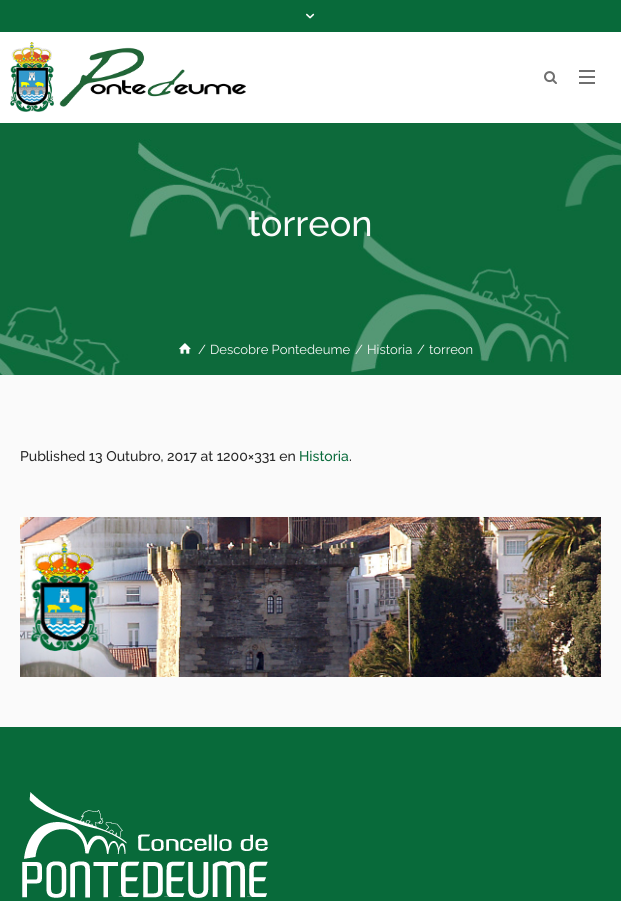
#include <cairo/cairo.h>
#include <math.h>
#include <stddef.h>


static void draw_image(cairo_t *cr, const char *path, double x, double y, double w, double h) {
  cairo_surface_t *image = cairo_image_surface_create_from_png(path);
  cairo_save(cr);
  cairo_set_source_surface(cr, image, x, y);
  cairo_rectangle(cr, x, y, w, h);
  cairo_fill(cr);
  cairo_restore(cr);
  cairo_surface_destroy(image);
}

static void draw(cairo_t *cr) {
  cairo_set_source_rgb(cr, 250 / 255.0, 250 / 255.0, 250 / 255.0);
  cairo_paint(cr);
  cairo_set_source_rgb(cr, 8 / 255.0, 106 / 255.0, 58 / 255.0);
  cairo_rectangle(cr, 0, 0, 621, 32);
  cairo_fill(cr);
  draw_image(cr, "images/1.png", 306, 13, 9, 6);
  cairo_set_source_rgb(cr, 1, 1, 1);
  cairo_rectangle(cr, 0, 32, 621, 91);
  cairo_fill(cr);
  draw_image(cr, "images/2.png", 10, 42, 236, 70);
  draw_image(cr, "images/3.png", 544, 71, 13, 13);
  cairo_set_source_rgb(cr, 111 / 255.0, 111 / 255.0, 111 / 255.0);
  cairo_rectangle(cr, 579, 76, 16, 2);
  cairo_fill(cr);
  cairo_rectangle(cr, 579, 70, 16, 2);
  cairo_fill(cr);
  cairo_rectangle(cr, 579, 82, 16, 2);
  cairo_fill(cr);
  draw_image(cr, "images/4.png", 0, 123, 621, 252);
  draw_image(cr, "images/5.png", 179, 343, 12, 11);
  draw_image(cr, "images/6.png", 20, 517, 581, 160);
  cairo_set_source_rgb(cr, 8 / 255.0, 106 / 255.0, 58 / 255.0);
  cairo_rectangle(cr, 0, 727, 621, 174);
  cairo_fill(cr);
  draw_image(cr, "images/7.png", 22, 792, 246, 106);
  cairo_select_font_face(cr, "Raleway Medium", CAIRO_FONT_SLANT_NORMAL, CAIRO_FONT_WEIGHT_NORMAL);
  cairo_set_font_size(cr, 36);
  cairo_set_source_rgb(cr, 250 / 255.0, 250 / 255.0, 250 / 255.0);
  cairo_move_to(cr, 248, 236);
  cairo_show_text(cr, "torreon");
  cairo_select_font_face(cr, "Raleway", CAIRO_FONT_SLANT_NORMAL, CAIRO_FONT_WEIGHT_NORMAL);
  cairo_set_font_size(cr, 13);
  cairo_move_to(cr, 198, 354);
  cairo_show_text(cr, "/");
  cairo_move_to(cr, 210, 354);
  cairo_show_text(cr, "Descobre Pontedeume");
  cairo_move_to(cr, 355, 354);
  cairo_show_text(cr, "/");
  cairo_move_to(cr, 367, 354);
  cairo_show_text(cr, "Historia");
  cairo_move_to(cr, 417, 354);
  cairo_show_text(cr, "/");
  cairo_move_to(cr, 429, 354);
  cairo_show_text(cr, "torreon");
  cairo_select_font_face(cr, "Raleway Medium", CAIRO_FONT_SLANT_NORMAL, CAIRO_FONT_WEIGHT_NORMAL);
  cairo_set_font_size(cr, 14);
  cairo_set_source_rgb(cr, 40 / 255.0, 40 / 255.0, 40 / 255.0);
  cairo_move_to(cr, 20, 461);
  cairo_show_text(cr, "Published 13 Outubro, 2017 at 1200×331 en");
  cairo_set_source_rgb(cr, 8 / 255.0, 106 / 255.0, 58 / 255.0);
  cairo_move_to(cr, 299, 461);
  cairo_show_text(cr, "Historia");
  cairo_set_source_rgb(cr, 40 / 255.0, 40 / 255.0, 40 / 255.0);
  cairo_move_to(cr, 349, 461);
  cairo_show_text(cr, ".");
}

int main(void) {
  cairo_surface_t *surface = cairo_image_surface_create(CAIRO_FORMAT_RGB24, 621, 901);
  cairo_t *cr = cairo_create(surface);
  cairo_font_options_t *options = cairo_font_options_create();
  cairo_font_options_set_hint_metrics(options, CAIRO_HINT_METRICS_OFF);
  cairo_font_options_set_hint_style(options, CAIRO_HINT_STYLE_NONE);
  cairo_set_font_options(cr, options);
  cairo_set_miter_limit(cr, 4);
  draw(cr);
  cairo_surface_write_to_png(surface, "out.png");
  cairo_font_options_destroy(options);
  cairo_destroy(cr);
  cairo_surface_destroy(surface);
  return 0;
}
